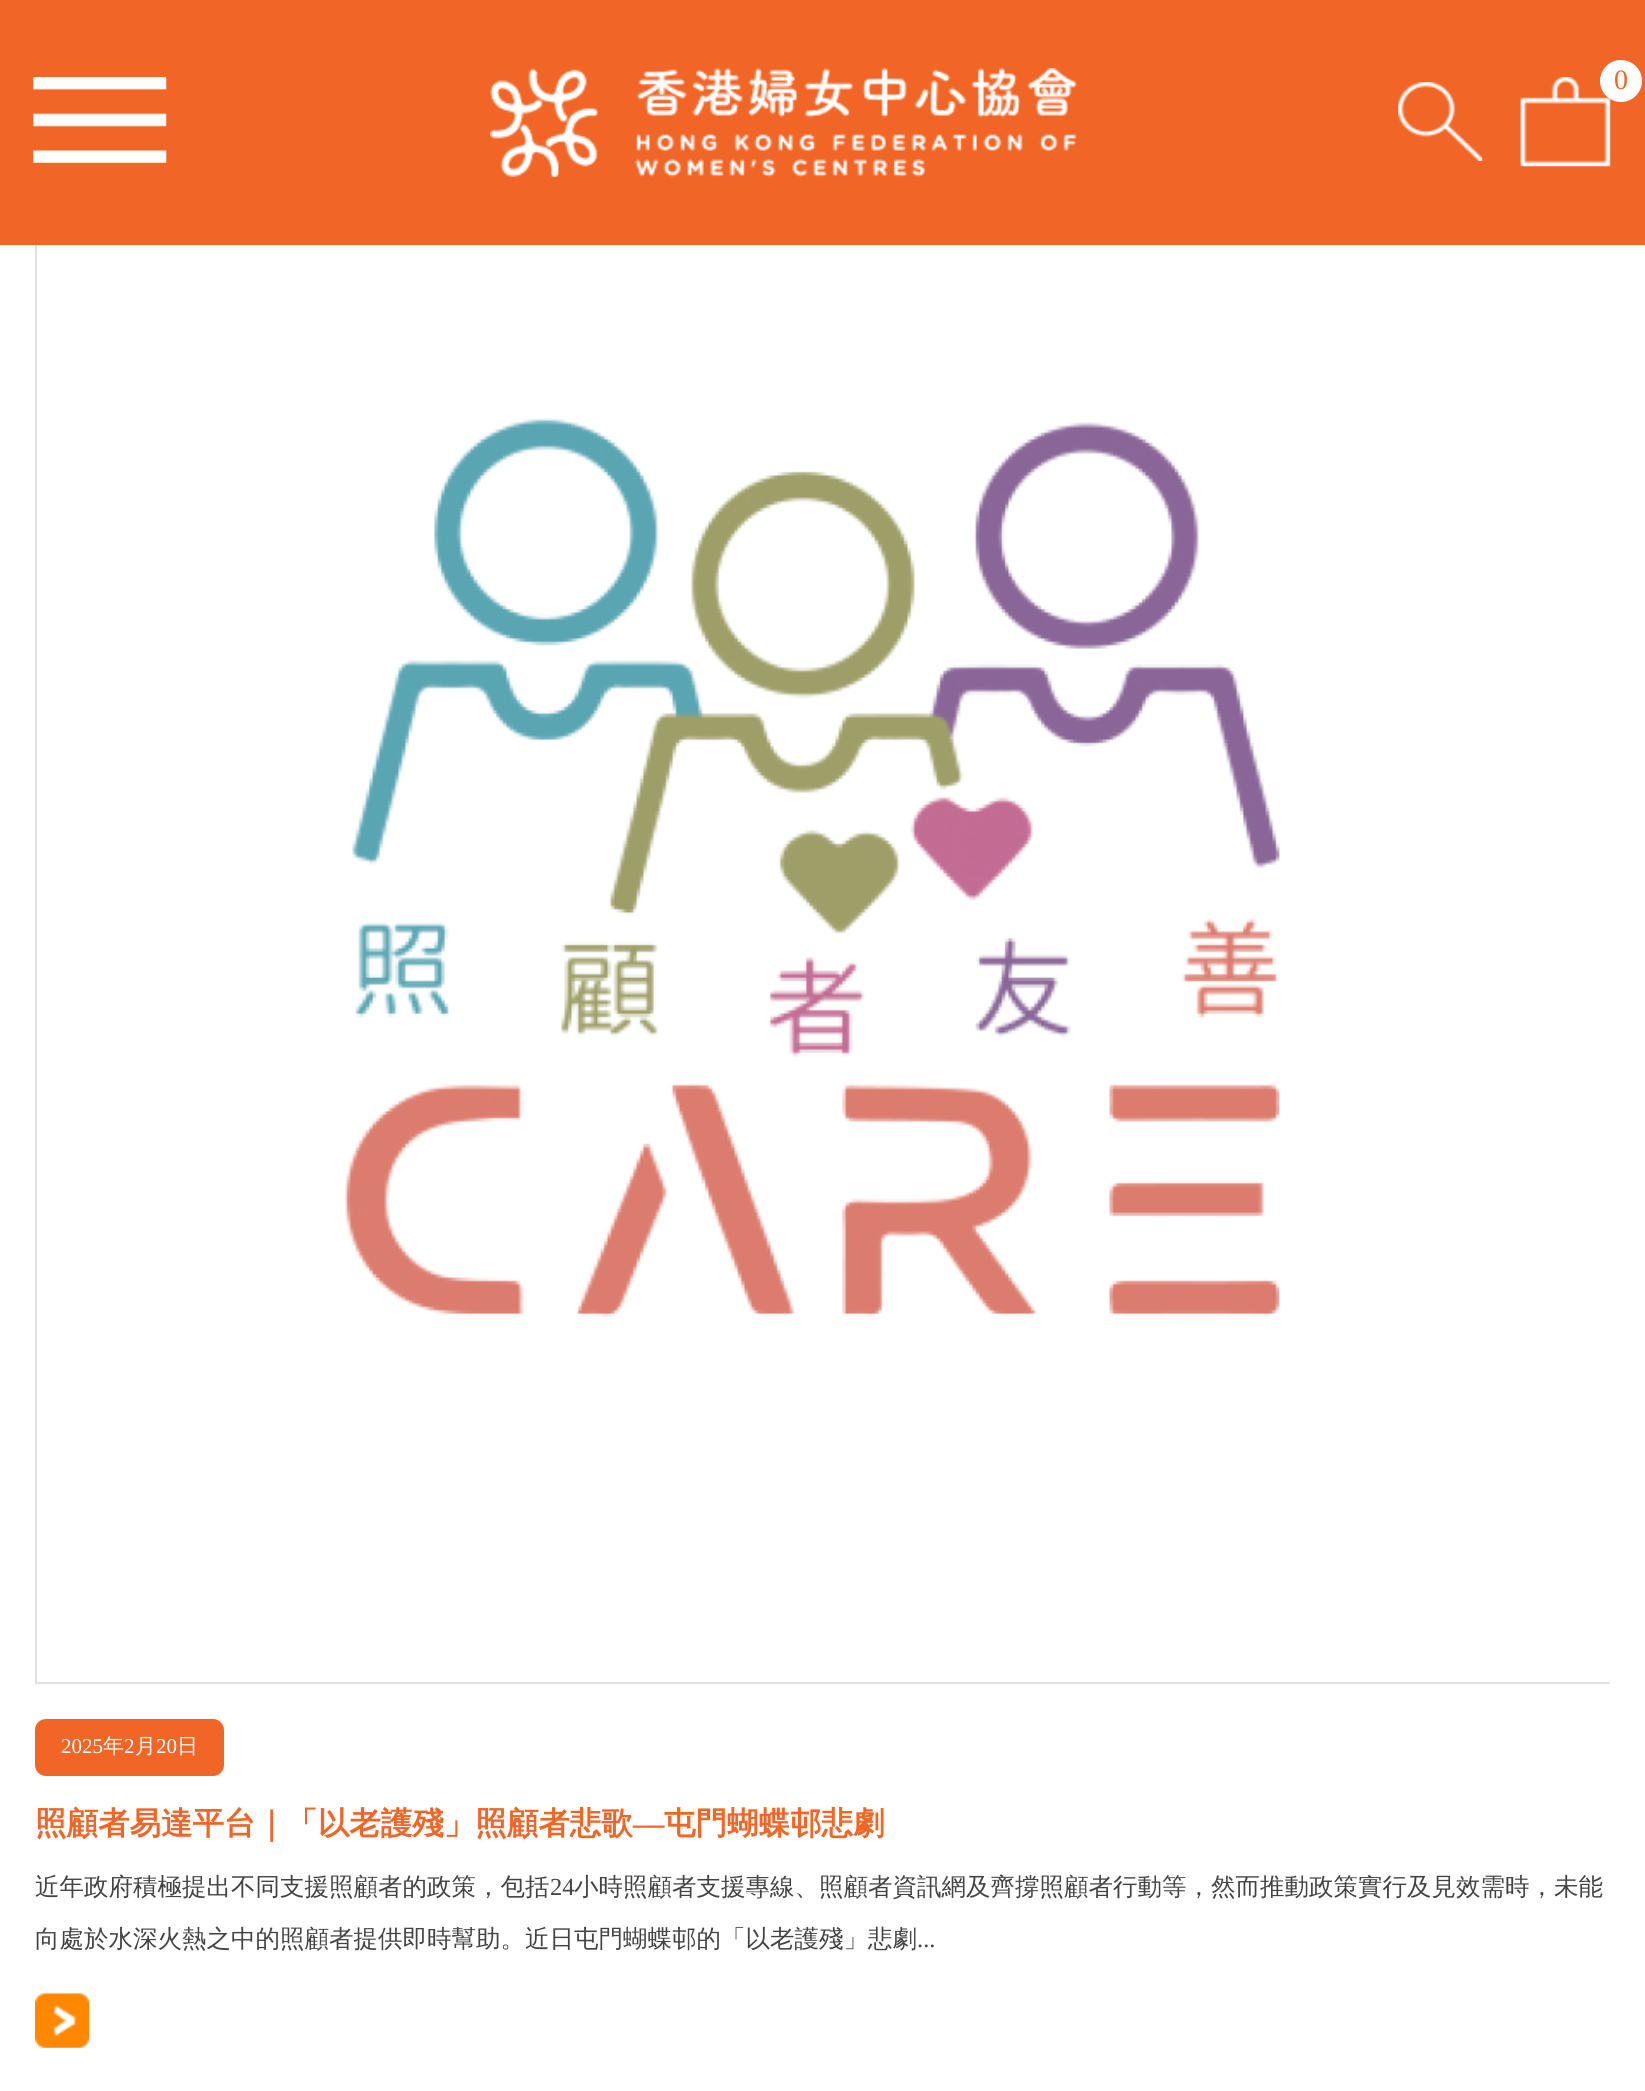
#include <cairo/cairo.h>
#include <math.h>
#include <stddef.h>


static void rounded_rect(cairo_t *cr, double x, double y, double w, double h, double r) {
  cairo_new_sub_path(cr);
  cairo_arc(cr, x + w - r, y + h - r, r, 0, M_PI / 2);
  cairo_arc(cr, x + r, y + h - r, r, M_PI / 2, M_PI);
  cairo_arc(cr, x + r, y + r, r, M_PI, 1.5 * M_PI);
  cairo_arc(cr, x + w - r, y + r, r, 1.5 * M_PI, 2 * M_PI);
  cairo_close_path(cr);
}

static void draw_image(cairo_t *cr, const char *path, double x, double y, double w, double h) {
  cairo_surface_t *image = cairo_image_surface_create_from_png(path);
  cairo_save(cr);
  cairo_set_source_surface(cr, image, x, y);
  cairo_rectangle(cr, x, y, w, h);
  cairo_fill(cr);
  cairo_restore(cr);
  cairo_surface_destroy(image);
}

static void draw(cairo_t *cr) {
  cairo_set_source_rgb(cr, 1, 1, 1);
  cairo_paint(cr);
  cairo_save(cr);
  cairo_rectangle(cr, 35, 0, 1575, 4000);
  cairo_clip(cr);
  cairo_rectangle(cr, 36, 106, 1577, 1577);
  cairo_set_source_rgb(cr, 225 / 255.0, 225 / 255.0, 225 / 255.0);
  cairo_stroke(cr);
  cairo_restore(cr);
  cairo_set_source_rgb(cr, 241 / 255.0, 101 / 255.0, 39 / 255.0);
  cairo_rectangle(cr, 0, 0, 1645, 245);
  cairo_fill(cr);
  draw_image(cr, "images/1.png", 33, 77, 134, 86);
  draw_image(cr, "images/2.png", 490, 68, 587, 109);
  draw_image(cr, "images/3.png", 1520, 77, 91, 90);
  cairo_set_source_rgb(cr, 1, 1, 1);
  cairo_arc(cr, 1621, 81, 21, 0, 2 * M_PI);
  cairo_fill(cr);
  draw_image(cr, "images/4.png", 1398, 82, 85, 79);
  draw_image(cr, "images/5.png", 344, 418, 936, 900);
  cairo_set_source_rgb(cr, 241 / 255.0, 101 / 255.0, 39 / 255.0);
  rounded_rect(cr, 35, 1719, 189, 57, 11);
  cairo_fill(cr);
  draw_image(cr, "images/6.png", 35, 1993, 55, 55);
  cairo_select_font_face(cr, "Liberation Serif", CAIRO_FONT_SLANT_NORMAL, CAIRO_FONT_WEIGHT_NORMAL);
  cairo_set_font_size(cr, 28);
  cairo_move_to(cr, 1614, 89);
  cairo_show_text(cr, "0");
  cairo_set_font_size(cr, 21);
  cairo_set_source_rgb(cr, 1, 1, 1);
  cairo_move_to(cr, 61, 1753);
  cairo_show_text(cr, "2025");
  cairo_select_font_face(cr, "WenQuanYi Zen Hei Medium", CAIRO_FONT_SLANT_NORMAL, CAIRO_FONT_WEIGHT_NORMAL);
  cairo_move_to(cr, 103, 1753);
  cairo_show_text(cr, "年");
  cairo_select_font_face(cr, "Liberation Serif", CAIRO_FONT_SLANT_NORMAL, CAIRO_FONT_WEIGHT_NORMAL);
  cairo_move_to(cr, 124, 1753);
  cairo_show_text(cr, "2");
  cairo_select_font_face(cr, "WenQuanYi Zen Hei Medium", CAIRO_FONT_SLANT_NORMAL, CAIRO_FONT_WEIGHT_NORMAL);
  cairo_move_to(cr, 135, 1753);
  cairo_show_text(cr, "月");
  cairo_select_font_face(cr, "Liberation Serif", CAIRO_FONT_SLANT_NORMAL, CAIRO_FONT_WEIGHT_NORMAL);
  cairo_move_to(cr, 156, 1753);
  cairo_show_text(cr, "20");
  cairo_select_font_face(cr, "WenQuanYi Zen Hei Medium", CAIRO_FONT_SLANT_NORMAL, CAIRO_FONT_WEIGHT_NORMAL);
  cairo_move_to(cr, 177, 1753);
  cairo_show_text(cr, "日");
  cairo_select_font_face(cr, "WenQuanYi Zen Hei", CAIRO_FONT_SLANT_NORMAL, CAIRO_FONT_WEIGHT_BOLD);
  cairo_set_font_size(cr, 31.5);
  cairo_set_source_rgb(cr, 241 / 255.0, 101 / 255.0, 39 / 255.0);
  cairo_move_to(cr, 35, 1834);
  cairo_show_text(cr, "照顧者易達平台｜「以老護殘」照顧者悲歌");
  cairo_select_font_face(cr, "Liberation Serif", CAIRO_FONT_SLANT_NORMAL, CAIRO_FONT_WEIGHT_BOLD);
  cairo_move_to(cr, 633, 1834);
  cairo_show_text(cr, "—");
  cairo_select_font_face(cr, "WenQuanYi Zen Hei", CAIRO_FONT_SLANT_NORMAL, CAIRO_FONT_WEIGHT_BOLD);
  cairo_move_to(cr, 664, 1834);
  cairo_show_text(cr, "屯門蝴蝶邨悲劇");
  cairo_select_font_face(cr, "WenQuanYi Zen Hei Medium", CAIRO_FONT_SLANT_NORMAL, CAIRO_FONT_WEIGHT_NORMAL);
  cairo_set_font_size(cr, 24.5);
  cairo_set_source_rgb(cr, 67 / 255.0, 67 / 255.0, 67 / 255.0);
  cairo_move_to(cr, 35, 1895);
  cairo_show_text(cr, "近年政府積極提出不同支援照顧者的政策，包括");
  cairo_select_font_face(cr, "Liberation Serif", CAIRO_FONT_SLANT_NORMAL, CAIRO_FONT_WEIGHT_NORMAL);
  cairo_move_to(cr, 550, 1895);
  cairo_show_text(cr, "24");
  cairo_select_font_face(cr, "WenQuanYi Zen Hei Medium", CAIRO_FONT_SLANT_NORMAL, CAIRO_FONT_WEIGHT_NORMAL);
  cairo_move_to(cr, 574, 1895);
  cairo_show_text(cr, "小時照顧者支援專線、照顧者資訊網及齊撐照顧者行動等，然而推動政策實行及見效需時，未能");
  cairo_move_to(cr, 35, 1947);
  cairo_show_text(cr, "向處於水深火熱之中的照顧者提供即時幫助。近日屯門蝴蝶邨的「以老護殘」悲劇");
  cairo_select_font_face(cr, "Liberation Serif", CAIRO_FONT_SLANT_NORMAL, CAIRO_FONT_WEIGHT_NORMAL);
  cairo_move_to(cr, 917, 1947);
  cairo_show_text(cr, "...");
}

int main(void) {
  cairo_surface_t *surface = cairo_image_surface_create(CAIRO_FORMAT_RGB24, 1645, 2091);
  cairo_t *cr = cairo_create(surface);
  cairo_font_options_t *options = cairo_font_options_create();
  cairo_font_options_set_hint_metrics(options, CAIRO_HINT_METRICS_OFF);
  cairo_font_options_set_hint_style(options, CAIRO_HINT_STYLE_NONE);
  cairo_set_font_options(cr, options);
  cairo_set_miter_limit(cr, 4);
  draw(cr);
  cairo_surface_write_to_png(surface, "out.png");
  cairo_font_options_destroy(options);
  cairo_destroy(cr);
  cairo_surface_destroy(surface);
  return 0;
}
